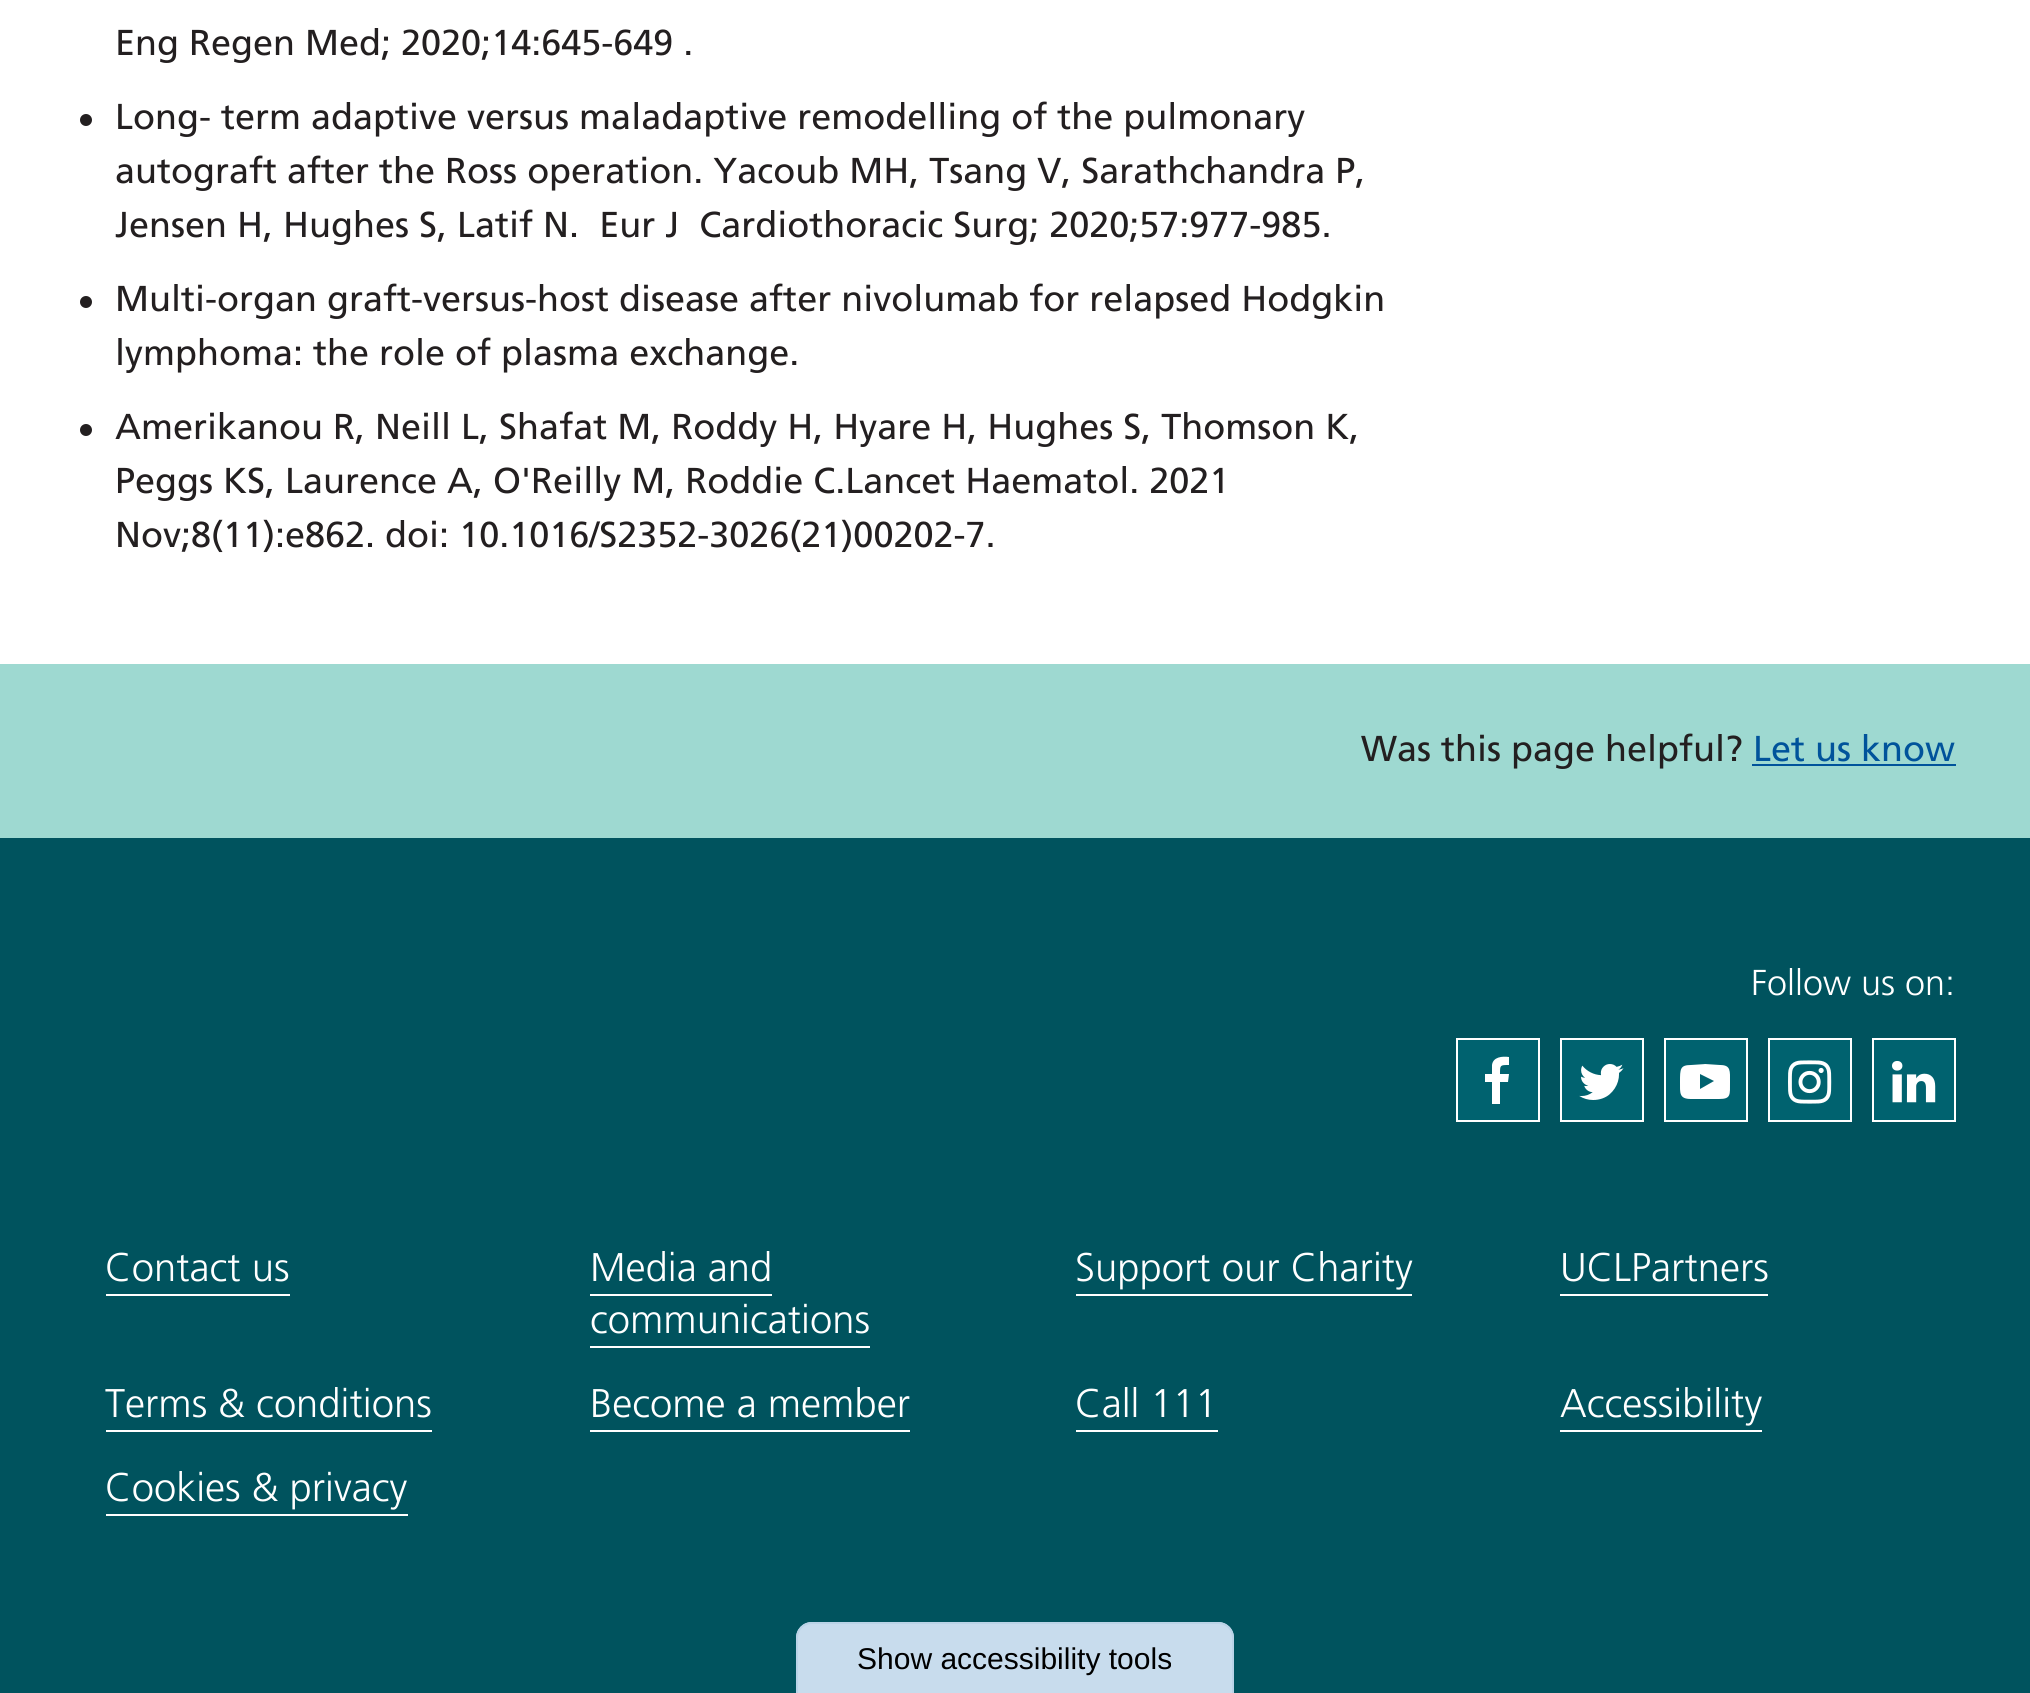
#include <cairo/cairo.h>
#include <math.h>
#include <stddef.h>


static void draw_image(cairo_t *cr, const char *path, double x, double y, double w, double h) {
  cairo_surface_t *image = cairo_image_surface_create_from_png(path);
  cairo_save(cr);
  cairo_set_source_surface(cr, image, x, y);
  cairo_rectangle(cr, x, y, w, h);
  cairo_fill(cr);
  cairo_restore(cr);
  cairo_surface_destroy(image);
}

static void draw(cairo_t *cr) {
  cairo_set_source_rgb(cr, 1, 1, 1);
  cairo_paint(cr);
  cairo_set_source_rgb(cr, 35 / 255.0, 31 / 255.0, 32 / 255.0);
  cairo_arc(cr, 86, 120, 6, 0, 2 * M_PI);
  cairo_fill(cr);
  cairo_arc(cr, 86, 302, 6, 0, 2 * M_PI);
  cairo_fill(cr);
  cairo_arc(cr, 86, 430, 6, 0, 2 * M_PI);
  cairo_fill(cr);
  cairo_set_source_rgb(cr, 158 / 255.0, 217 / 255.0, 209 / 255.0);
  cairo_rectangle(cr, 0, 664, 2030, 174);
  cairo_fill(cr);
  cairo_set_source_rgb(cr, 0, 83 / 255.0, 155 / 255.0);
  cairo_rectangle(cr, 1752, 764, 204, 2);
  cairo_fill(cr);
  cairo_set_source_rgb(cr, 0, 83 / 255.0, 94 / 255.0);
  cairo_rectangle(cr, 0, 838, 2030, 855);
  cairo_fill(cr);
  cairo_set_source_rgb(cr, 0, 98 / 255.0, 111 / 255.0);
  cairo_rectangle(cr, 1457, 1039, 82, 82);
  cairo_fill_preserve(cr);
  cairo_set_source_rgb(cr, 1, 1, 1);
  cairo_stroke(cr);
  cairo_new_path(cr);
  cairo_move_to(cr, 1509, 1057);
  cairo_line_to(cr, 1509, 1065);
  cairo_curve_to(cr, 1500, 1065, 1500, 1065, 1500, 1074);
  cairo_line_to(cr, 1509, 1074);
  cairo_line_to(cr, 1508, 1082);
  cairo_line_to(cr, 1500, 1082);
  cairo_line_to(cr, 1500, 1104);
  cairo_line_to(cr, 1492, 1104);
  cairo_line_to(cr, 1492, 1082);
  cairo_line_to(cr, 1485, 1082);
  cairo_line_to(cr, 1485, 1074);
  cairo_line_to(cr, 1492, 1074);
  cairo_line_to(cr, 1492, 1065);
  cairo_curve_to(cr, 1493, 1057, 1502, 1056, 1509, 1057);
  cairo_close_path(cr);
  cairo_fill(cr);
  cairo_set_source_rgb(cr, 0, 98 / 255.0, 111 / 255.0);
  cairo_rectangle(cr, 1561, 1039, 82, 82);
  cairo_fill_preserve(cr);
  cairo_set_source_rgb(cr, 1, 1, 1);
  cairo_stroke(cr);
  draw_image(cr, "images/1.png", 1579, 1064, 45, 36);
  cairo_set_source_rgb(cr, 0, 98 / 255.0, 111 / 255.0);
  cairo_rectangle(cr, 1665, 1039, 82, 82);
  cairo_fill_preserve(cr);
  cairo_set_source_rgb(cr, 1, 1, 1);
  cairo_stroke(cr);
  cairo_new_path(cr);
  cairo_move_to(cr, 1700, 1089);
  cairo_line_to(cr, 1714, 1081);
  cairo_line_to(cr, 1700, 1074);
  cairo_close_path(cr);
  cairo_move_to(cr, 1705, 1064);
  cairo_line_to(cr, 1720, 1065);
  cairo_curve_to(cr, 1731, 1065, 1730, 1071, 1730, 1082);
  cairo_curve_to(cr, 1730, 1095, 1731, 1099, 1719, 1099);
  cairo_line_to(cr, 1691, 1099);
  cairo_curve_to(cr, 1679, 1099, 1680, 1093, 1680, 1082);
  cairo_curve_to(cr, 1680, 1069, 1680, 1065, 1691, 1065);
  cairo_close_path(cr);
  cairo_fill(cr);
  cairo_set_source_rgb(cr, 0, 98 / 255.0, 111 / 255.0);
  cairo_rectangle(cr, 1769, 1039, 82, 82);
  cairo_fill_preserve(cr);
  cairo_set_source_rgb(cr, 1, 1, 1);
  cairo_stroke(cr);
  draw_image(cr, "images/2.png", 1788, 1060, 44, 44);
  cairo_set_source_rgb(cr, 0, 98 / 255.0, 111 / 255.0);
  cairo_rectangle(cr, 1873, 1039, 82, 82);
  cairo_fill_preserve(cr);
  cairo_set_source_rgb(cr, 1, 1, 1);
  cairo_stroke(cr);
  draw_image(cr, "images/3.png", 1892, 1061, 44, 42);
  cairo_rectangle(cr, 106, 1294, 184, 2);
  cairo_fill(cr);
  cairo_rectangle(cr, 590, 1294, 182, 2);
  cairo_fill(cr);
  cairo_rectangle(cr, 590, 1346, 280, 2);
  cairo_fill(cr);
  cairo_rectangle(cr, 1076, 1294, 336, 2);
  cairo_fill(cr);
  cairo_rectangle(cr, 1560, 1294, 208, 2);
  cairo_fill(cr);
  cairo_rectangle(cr, 106, 1430, 326, 2);
  cairo_fill(cr);
  cairo_rectangle(cr, 590, 1430, 320, 2);
  cairo_fill(cr);
  cairo_rectangle(cr, 1076, 1430, 142, 2);
  cairo_fill(cr);
  cairo_rectangle(cr, 1560, 1430, 202, 2);
  cairo_fill(cr);
  cairo_rectangle(cr, 106, 1514, 302, 2);
  cairo_fill(cr);
  cairo_set_source_rgb(cr, 200 / 255.0, 220 / 255.0, 237 / 255.0);
  cairo_new_path(cr);
  cairo_move_to(cr, 812, 1622);
  cairo_line_to(cr, 1218, 1622);
  cairo_curve_to(cr, 1227, 1622, 1234, 1629, 1234, 1638);
  cairo_line_to(cr, 1234, 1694);
  cairo_line_to(cr, 796, 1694);
  cairo_line_to(cr, 796, 1638);
  cairo_curve_to(cr, 796, 1629, 803, 1622, 812, 1622);
  cairo_close_path(cr);
  cairo_fill(cr);
  cairo_set_source_rgb(cr, 186 / 255.0, 211 / 255.0, 231 / 255.0);
  cairo_set_fill_rule(cr, CAIRO_FILL_RULE_EVEN_ODD);
  cairo_new_path(cr);
  cairo_move_to(cr, 812, 1622);
  cairo_line_to(cr, 1218, 1622);
  cairo_curve_to(cr, 1227, 1622, 1234, 1629, 1234, 1638);
  cairo_line_to(cr, 1234, 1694);
  cairo_line_to(cr, 796, 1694);
  cairo_line_to(cr, 796, 1638);
  cairo_curve_to(cr, 796, 1629, 803, 1622, 812, 1622);
  cairo_close_path(cr);
  cairo_move_to(cr, 812, 1624);
  cairo_line_to(cr, 1218, 1624);
  cairo_curve_to(cr, 1226, 1624, 1232, 1630, 1232, 1638);
  cairo_line_to(cr, 1232, 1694);
  cairo_line_to(cr, 798, 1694);
  cairo_line_to(cr, 798, 1638);
  cairo_curve_to(cr, 798, 1630, 804, 1624, 812, 1624);
  cairo_close_path(cr);
  cairo_fill(cr);
  cairo_select_font_face(cr, "Frutiger", CAIRO_FONT_SLANT_NORMAL, CAIRO_FONT_WEIGHT_NORMAL);
  cairo_set_font_size(cr, 36);
  cairo_set_source_rgb(cr, 35 / 255.0, 31 / 255.0, 32 / 255.0);
  cairo_move_to(cr, 115, 55);
  cairo_show_text(cr, "Eng Regen Med; 2020;14:645-649 .");
  cairo_move_to(cr, 115, 129);
  cairo_show_text(cr, "Long- term adaptive versus maladaptive remodelling of the pulmonary");
  cairo_move_to(cr, 115, 183);
  cairo_show_text(cr, "autograft after the Ross operation. Yacoub MH, Tsang V, Sarathchandra P,");
  cairo_move_to(cr, 115, 237);
  cairo_show_text(cr, "Jensen H, Hughes S, Latif N.  Eur J  Cardiothoracic Surg; 2020;57:977-985.");
  cairo_move_to(cr, 115, 311);
  cairo_show_text(cr, "Multi-organ graft-versus-host disease after nivolumab for relapsed Hodgkin");
  cairo_move_to(cr, 115, 365);
  cairo_show_text(cr, "lymphoma: the role of plasma exchange.");
  cairo_move_to(cr, 115, 439);
  cairo_show_text(cr, "Amerikanou R, Neill L, Shafat M, Roddy H, Hyare H, Hughes S, Thomson K,");
  cairo_move_to(cr, 115, 493);
  cairo_show_text(cr, "Peggs KS, Laurence A, O'Reilly M, Roddie C.Lancet Haematol. 2021");
  cairo_move_to(cr, 115, 547);
  cairo_show_text(cr, "Nov;8(11):e862. doi: 10.1016/S2352-3026(21)00202-7.");
  cairo_move_to(cr, 1361, 761);
  cairo_show_text(cr, "Was this page helpful?");
  cairo_set_source_rgb(cr, 0, 83 / 255.0, 155 / 255.0);
  cairo_move_to(cr, 1753, 761);
  cairo_show_text(cr, "Let us know");
  cairo_select_font_face(cr, "Frutiger Light", CAIRO_FONT_SLANT_NORMAL, CAIRO_FONT_WEIGHT_NORMAL);
  cairo_set_source_rgb(cr, 1, 1, 1);
  cairo_move_to(cr, 1751, 995);
  cairo_show_text(cr, "Follow us on:");
  cairo_set_font_size(cr, 40);
  cairo_move_to(cr, 105, 1281);
  cairo_show_text(cr, "Contact us");
  cairo_move_to(cr, 590, 1281);
  cairo_show_text(cr, "Media and");
  cairo_move_to(cr, 590, 1333);
  cairo_show_text(cr, "communications");
  cairo_move_to(cr, 1075, 1281);
  cairo_show_text(cr, "Support our Charity");
  cairo_move_to(cr, 1560, 1281);
  cairo_show_text(cr, "UCLPartners");
  cairo_move_to(cr, 105, 1417);
  cairo_show_text(cr, "Terms & conditions");
  cairo_move_to(cr, 590, 1417);
  cairo_show_text(cr, "Become a member");
  cairo_move_to(cr, 1075, 1417);
  cairo_show_text(cr, "Call 111");
  cairo_move_to(cr, 1560, 1417);
  cairo_show_text(cr, "Accessibility");
  cairo_move_to(cr, 105, 1501);
  cairo_show_text(cr, "Cookies & privacy");
  cairo_select_font_face(cr, "Liberation Sans", CAIRO_FONT_SLANT_NORMAL, CAIRO_FONT_WEIGHT_NORMAL);
  cairo_set_font_size(cr, 30);
  cairo_set_source_rgb(cr, 0, 0, 0);
  cairo_move_to(cr, 857, 1669);
  cairo_show_text(cr, "Show accessibility tools");
}

int main(void) {
  cairo_surface_t *surface = cairo_image_surface_create(CAIRO_FORMAT_RGB24, 2030, 1693);
  cairo_t *cr = cairo_create(surface);
  cairo_font_options_t *options = cairo_font_options_create();
  cairo_font_options_set_hint_metrics(options, CAIRO_HINT_METRICS_OFF);
  cairo_font_options_set_hint_style(options, CAIRO_HINT_STYLE_NONE);
  cairo_set_font_options(cr, options);
  cairo_set_miter_limit(cr, 4);
  draw(cr);
  cairo_surface_write_to_png(surface, "out.png");
  cairo_font_options_destroy(options);
  cairo_destroy(cr);
  cairo_surface_destroy(surface);
  return 0;
}
